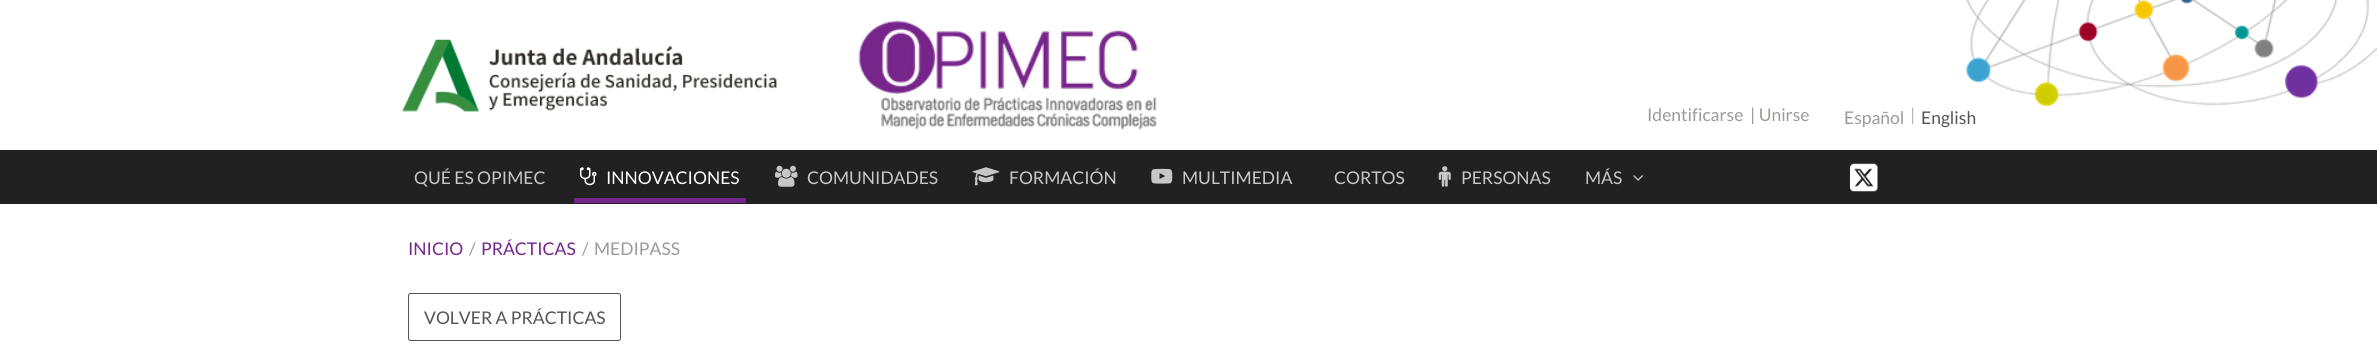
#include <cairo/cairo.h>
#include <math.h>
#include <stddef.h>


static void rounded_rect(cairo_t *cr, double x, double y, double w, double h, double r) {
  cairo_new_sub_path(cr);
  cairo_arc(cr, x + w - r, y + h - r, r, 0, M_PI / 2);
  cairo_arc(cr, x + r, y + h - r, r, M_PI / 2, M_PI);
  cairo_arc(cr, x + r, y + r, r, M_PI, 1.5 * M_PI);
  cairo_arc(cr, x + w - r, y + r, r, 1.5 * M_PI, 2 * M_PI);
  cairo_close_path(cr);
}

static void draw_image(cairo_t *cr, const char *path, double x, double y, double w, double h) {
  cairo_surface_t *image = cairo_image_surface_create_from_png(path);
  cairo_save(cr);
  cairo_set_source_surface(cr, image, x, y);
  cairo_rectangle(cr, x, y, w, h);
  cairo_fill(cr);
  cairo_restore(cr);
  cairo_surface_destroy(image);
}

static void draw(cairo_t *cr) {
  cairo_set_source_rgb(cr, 1, 1, 1);
  cairo_paint(cr);
  draw_image(cr, "images/1.png", 1966, 0, 411, 107);
  draw_image(cr, "images/2.png", 402, 39, 376, 73);
  draw_image(cr, "images/3.png", 858, 20, 299, 110);
  cairo_set_source_rgb(cr, 33 / 255.0, 33 / 255.0, 33 / 255.0);
  cairo_rectangle(cr, 0, 150, 2377, 54);
  cairo_fill(cr);
  cairo_set_source_rgb(cr, 118 / 255.0, 37 / 255.0, 138 / 255.0);
  cairo_rectangle(cr, 574, 198, 172, 5);
  cairo_fill(cr);
  draw_image(cr, "images/4.png", 580, 167, 17, 19);
  draw_image(cr, "images/5.png", 775, 165, 23, 22);
  draw_image(cr, "images/6.png", 972, 167, 28, 19);
  draw_image(cr, "images/7.png", 1151, 168, 22, 16);
  draw_image(cr, "images/8.png", 1438, 166, 13, 21);
  draw_image(cr, "images/9.png", 1633, 175, 10, 6);
  draw_image(cr, "images/10.png", 1850, 163, 28, 29);
  rounded_rect(cr, 408.5, 293.5, 212, 47, 2);
  cairo_set_source_rgb(cr, 84 / 255.0, 84 / 255.0, 84 / 255.0);
  cairo_set_line_width(cr, 1);
  cairo_stroke(cr);
  cairo_select_font_face(cr, "Lato", CAIRO_FONT_SLANT_NORMAL, CAIRO_FONT_WEIGHT_NORMAL);
  cairo_set_font_size(cr, 17.5);
  cairo_set_source_rgb(cr, 156 / 255.0, 154 / 255.0, 152 / 255.0);
  cairo_move_to(cr, 1647, 121);
  cairo_show_text(cr, "Identificarse");
  cairo_move_to(cr, 1750, 121);
  cairo_show_text(cr, "| Unirse");
  cairo_move_to(cr, 1844, 124);
  cairo_show_text(cr, "Español");
  cairo_set_source_rgb(cr, 183 / 255.0, 181 / 255.0, 179 / 255.0);
  cairo_move_to(cr, 1910, 121);
  cairo_show_text(cr, "|");
  cairo_set_source_rgb(cr, 84 / 255.0, 84 / 255.0, 84 / 255.0);
  cairo_move_to(cr, 1921, 124);
  cairo_show_text(cr, "English");
  cairo_set_source_rgb(cr, 200 / 255.0, 200 / 255.0, 200 / 255.0);
  cairo_move_to(cr, 414, 184);
  cairo_show_text(cr, "QUÉ ES OPIMEC");
  cairo_set_source_rgb(cr, 1, 1, 1);
  cairo_move_to(cr, 606, 184);
  cairo_show_text(cr, "INNOVACIONES");
  cairo_set_source_rgb(cr, 200 / 255.0, 200 / 255.0, 200 / 255.0);
  cairo_move_to(cr, 807, 184);
  cairo_show_text(cr, "COMUNIDADES");
  cairo_move_to(cr, 1009, 184);
  cairo_show_text(cr, "FORMACIÓN");
  cairo_move_to(cr, 1182, 184);
  cairo_show_text(cr, "MULTIMEDIA");
  cairo_move_to(cr, 1334, 184);
  cairo_show_text(cr, "CORTOS");
  cairo_move_to(cr, 1461, 184);
  cairo_show_text(cr, "PERSONAS");
  cairo_move_to(cr, 1585, 184);
  cairo_show_text(cr, "MÁS");
  cairo_set_source_rgb(cr, 118 / 255.0, 37 / 255.0, 138 / 255.0);
  cairo_move_to(cr, 408, 255);
  cairo_show_text(cr, "INICIO");
  cairo_set_source_rgb(cr, 156 / 255.0, 154 / 255.0, 152 / 255.0);
  cairo_move_to(cr, 469, 255);
  cairo_show_text(cr, "/");
  cairo_set_source_rgb(cr, 118 / 255.0, 37 / 255.0, 138 / 255.0);
  cairo_move_to(cr, 481, 255);
  cairo_show_text(cr, "PRÁCTICAS");
  cairo_set_source_rgb(cr, 156 / 255.0, 154 / 255.0, 152 / 255.0);
  cairo_move_to(cr, 582, 255);
  cairo_show_text(cr, "/");
  cairo_move_to(cr, 594, 255);
  cairo_show_text(cr, "MEDIPASS");
  cairo_set_source_rgb(cr, 84 / 255.0, 84 / 255.0, 84 / 255.0);
  cairo_move_to(cr, 424, 324);
  cairo_show_text(cr, "VOLVER A PRÁCTICAS");
}

int main(void) {
  cairo_surface_t *surface = cairo_image_surface_create(CAIRO_FORMAT_RGB24, 2377, 363);
  cairo_t *cr = cairo_create(surface);
  cairo_font_options_t *options = cairo_font_options_create();
  cairo_font_options_set_hint_metrics(options, CAIRO_HINT_METRICS_OFF);
  cairo_font_options_set_hint_style(options, CAIRO_HINT_STYLE_NONE);
  cairo_set_font_options(cr, options);
  cairo_set_miter_limit(cr, 4);
  draw(cr);
  cairo_surface_write_to_png(surface, "out.png");
  cairo_font_options_destroy(options);
  cairo_destroy(cr);
  cairo_surface_destroy(surface);
  return 0;
}
